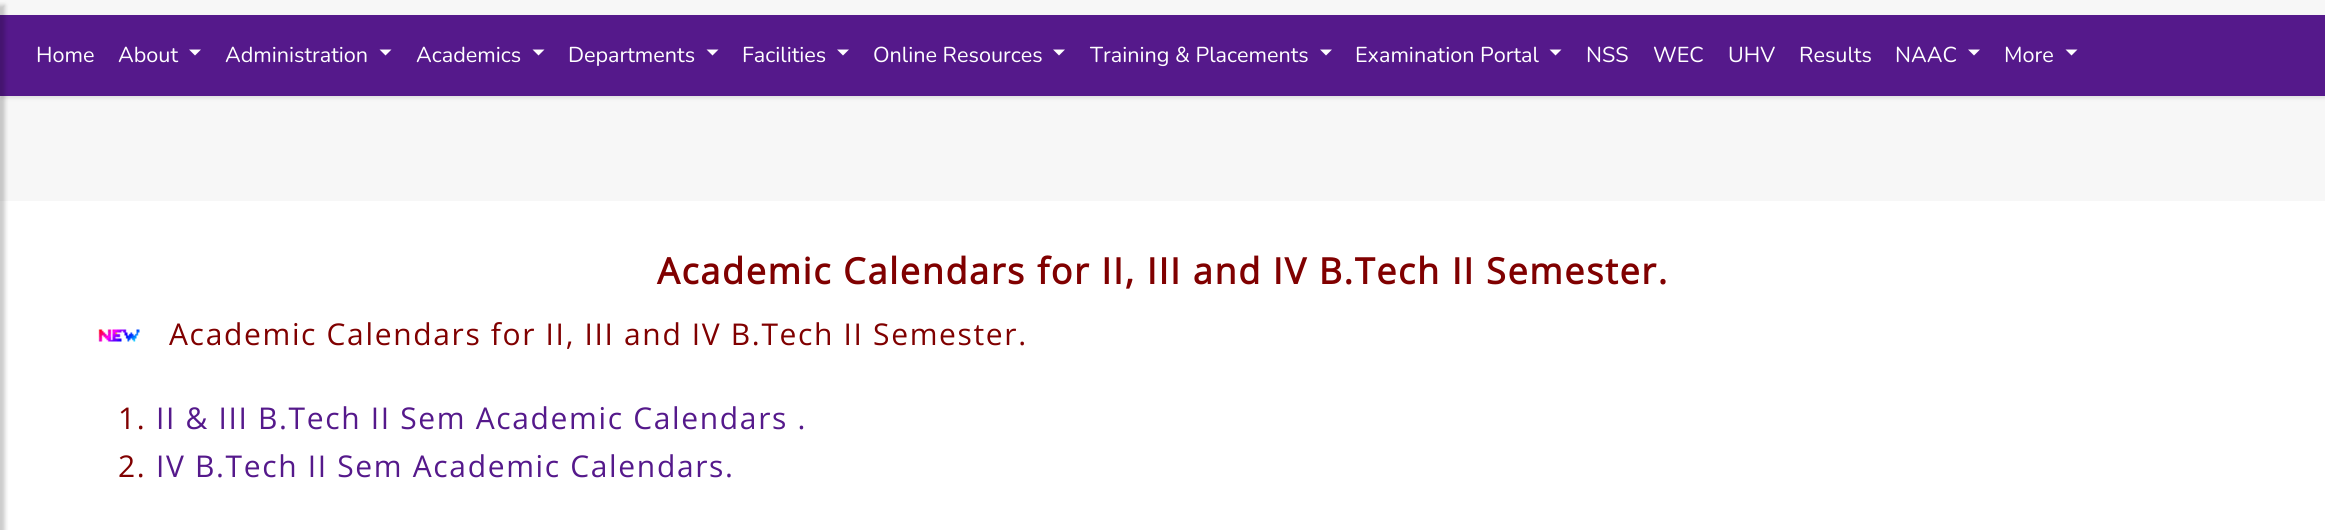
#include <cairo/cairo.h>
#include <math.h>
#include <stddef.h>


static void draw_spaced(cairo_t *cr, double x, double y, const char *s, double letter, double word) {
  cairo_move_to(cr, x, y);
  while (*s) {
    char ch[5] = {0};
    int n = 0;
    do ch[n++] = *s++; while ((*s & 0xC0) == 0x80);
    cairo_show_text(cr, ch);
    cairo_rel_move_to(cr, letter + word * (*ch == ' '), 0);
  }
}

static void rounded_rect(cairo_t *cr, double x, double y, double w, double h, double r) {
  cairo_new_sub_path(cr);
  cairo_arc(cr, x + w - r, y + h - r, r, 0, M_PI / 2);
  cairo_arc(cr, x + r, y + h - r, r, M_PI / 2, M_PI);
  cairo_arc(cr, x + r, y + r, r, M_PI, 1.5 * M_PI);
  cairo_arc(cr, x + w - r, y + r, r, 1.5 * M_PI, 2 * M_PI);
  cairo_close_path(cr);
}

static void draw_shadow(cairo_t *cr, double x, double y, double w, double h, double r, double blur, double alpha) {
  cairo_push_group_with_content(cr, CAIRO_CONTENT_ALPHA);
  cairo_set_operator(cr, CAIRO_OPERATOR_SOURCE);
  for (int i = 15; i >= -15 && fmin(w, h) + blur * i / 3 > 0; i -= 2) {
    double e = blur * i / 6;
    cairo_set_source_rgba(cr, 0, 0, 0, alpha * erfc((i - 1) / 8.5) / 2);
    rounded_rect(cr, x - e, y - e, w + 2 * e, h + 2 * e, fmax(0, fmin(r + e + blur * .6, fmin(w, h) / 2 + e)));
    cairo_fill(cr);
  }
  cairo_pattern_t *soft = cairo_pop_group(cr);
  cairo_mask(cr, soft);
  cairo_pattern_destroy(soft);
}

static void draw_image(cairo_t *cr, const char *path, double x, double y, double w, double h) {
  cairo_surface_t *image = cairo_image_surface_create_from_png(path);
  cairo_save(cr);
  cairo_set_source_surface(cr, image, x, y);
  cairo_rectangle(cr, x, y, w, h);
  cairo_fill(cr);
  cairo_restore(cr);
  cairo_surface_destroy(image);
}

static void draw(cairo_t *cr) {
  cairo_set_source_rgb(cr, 247 / 255.0, 247 / 255.0, 247 / 255.0);
  cairo_paint(cr);
  cairo_set_source_rgb(cr, 0, 0, 0);
  draw_shadow(cr, 2, 17, 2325, 81, 0, 2, 0.1);
  cairo_set_source_rgb(cr, 85 / 255.0, 25 / 255.0, 139 / 255.0);
  cairo_rectangle(cr, 0, 15, 2325, 81);
  cairo_fill(cr);
  cairo_set_source_rgb(cr, 1, 1, 1);
  cairo_rectangle(cr, 0, 201, 2325, 329);
  cairo_fill(cr);
  cairo_set_source_rgb(cr, 0, 0, 0);
  draw_shadow(cr, -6, 5, 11, 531, 0, 2, 0.2);
  cairo_set_source_rgb(cr, 1, 1, 1);
  cairo_new_path(cr);
  cairo_move_to(cr, 189, 49.5);
  cairo_line_to(cr, 201, 49.5);
  cairo_line_to(cr, 195, 55.5);
  cairo_close_path(cr);
  cairo_fill(cr);
  cairo_new_path(cr);
  cairo_move_to(cr, 379.5, 49.5);
  cairo_line_to(cr, 391.5, 49.5);
  cairo_line_to(cr, 385.5, 55.5);
  cairo_close_path(cr);
  cairo_fill(cr);
  cairo_new_path(cr);
  cairo_move_to(cr, 532.5, 49.5);
  cairo_line_to(cr, 544.5, 49.5);
  cairo_line_to(cr, 538.5, 55.5);
  cairo_close_path(cr);
  cairo_fill(cr);
  cairo_new_path(cr);
  cairo_move_to(cr, 706.5, 49.5);
  cairo_line_to(cr, 718.5, 49.5);
  cairo_line_to(cr, 712.5, 55.5);
  cairo_close_path(cr);
  cairo_fill(cr);
  cairo_new_path(cr);
  cairo_move_to(cr, 837, 49.5);
  cairo_line_to(cr, 849, 49.5);
  cairo_line_to(cr, 843, 55.5);
  cairo_close_path(cr);
  cairo_fill(cr);
  cairo_new_path(cr);
  cairo_move_to(cr, 1053, 49.5);
  cairo_line_to(cr, 1065, 49.5);
  cairo_line_to(cr, 1059, 55.5);
  cairo_close_path(cr);
  cairo_fill(cr);
  cairo_new_path(cr);
  cairo_move_to(cr, 1320, 49.5);
  cairo_line_to(cr, 1332, 49.5);
  cairo_line_to(cr, 1326, 55.5);
  cairo_close_path(cr);
  cairo_fill(cr);
  cairo_new_path(cr);
  cairo_move_to(cr, 1549.5, 49.5);
  cairo_line_to(cr, 1561.5, 49.5);
  cairo_line_to(cr, 1555.5, 55.5);
  cairo_close_path(cr);
  cairo_fill(cr);
  cairo_new_path(cr);
  cairo_move_to(cr, 1968, 49.5);
  cairo_line_to(cr, 1980, 49.5);
  cairo_line_to(cr, 1974, 55.5);
  cairo_close_path(cr);
  cairo_fill(cr);
  cairo_new_path(cr);
  cairo_move_to(cr, 2065.5, 49.5);
  cairo_line_to(cr, 2077.5, 49.5);
  cairo_line_to(cr, 2071.5, 55.5);
  cairo_close_path(cr);
  cairo_fill(cr);
  draw_image(cr, "images/1.png", 98, 329, 42, 13);
  cairo_select_font_face(cr, "Nunito", CAIRO_FONT_SLANT_NORMAL, CAIRO_FONT_WEIGHT_NORMAL);
  cairo_set_font_size(cr, 21.6);
  cairo_move_to(cr, 36, 62);
  cairo_show_text(cr, "Home");
  cairo_move_to(cr, 118, 62);
  cairo_show_text(cr, "About");
  cairo_move_to(cr, 225, 62);
  cairo_show_text(cr, "Administration");
  cairo_move_to(cr, 416, 62);
  cairo_show_text(cr, "Academics");
  cairo_move_to(cr, 568, 62);
  cairo_show_text(cr, "Departments");
  cairo_move_to(cr, 742, 62);
  cairo_show_text(cr, "Facilities");
  cairo_move_to(cr, 873, 62);
  cairo_show_text(cr, "Online Resources");
  cairo_move_to(cr, 1090, 62);
  cairo_show_text(cr, "Training & Placements");
  cairo_move_to(cr, 1355, 62);
  cairo_show_text(cr, "Examination Portal");
  cairo_move_to(cr, 1586, 62);
  cairo_show_text(cr, "NSS");
  cairo_move_to(cr, 1653, 62);
  cairo_show_text(cr, "WEC");
  cairo_move_to(cr, 1728, 62);
  cairo_show_text(cr, "UHV");
  cairo_move_to(cr, 1799, 62);
  cairo_show_text(cr, "Results");
  cairo_move_to(cr, 1895, 62);
  cairo_show_text(cr, "NAAC");
  cairo_move_to(cr, 2004, 62);
  cairo_show_text(cr, "More");
  cairo_select_font_face(cr, "Open Sans", CAIRO_FONT_SLANT_NORMAL, CAIRO_FONT_WEIGHT_BOLD);
  cairo_set_font_size(cr, 36);
  cairo_set_source_rgb(cr, 128 / 255.0, 0, 0);
  draw_spaced(cr, 657, 284, "Academic Calendars for II, III and IV B.Tech II Semester.", 1.65, 0);
  cairo_select_font_face(cr, "Open Sans", CAIRO_FONT_SLANT_NORMAL, CAIRO_FONT_WEIGHT_NORMAL);
  cairo_set_font_size(cr, 30);
  draw_spaced(cr, 169, 345, "Academic Calendars for II, III and IV B.Tech II Semester.", 1.65, 0);
  draw_spaced(cr, 118, 429, "1.", 1.65, 0);
  cairo_set_source_rgb(cr, 85 / 255.0, 25 / 255.0, 139 / 255.0);
  draw_spaced(cr, 156, 429, "II & III B.Tech II Sem Academic Calendars .", 1.65, 0);
  cairo_set_source_rgb(cr, 128 / 255.0, 0, 0);
  draw_spaced(cr, 118, 477, "2.", 1.65, 0);
  cairo_set_source_rgb(cr, 85 / 255.0, 25 / 255.0, 139 / 255.0);
  draw_spaced(cr, 156, 477, "IV B.Tech II Sem Academic Calendars.", 1.65, 0);
}

int main(void) {
  cairo_surface_t *surface = cairo_image_surface_create(CAIRO_FORMAT_RGB24, 2325, 530);
  cairo_t *cr = cairo_create(surface);
  cairo_font_options_t *options = cairo_font_options_create();
  cairo_font_options_set_hint_metrics(options, CAIRO_HINT_METRICS_OFF);
  cairo_font_options_set_hint_style(options, CAIRO_HINT_STYLE_NONE);
  cairo_set_font_options(cr, options);
  cairo_set_miter_limit(cr, 4);
  draw(cr);
  cairo_surface_write_to_png(surface, "out.png");
  cairo_font_options_destroy(options);
  cairo_destroy(cr);
  cairo_surface_destroy(surface);
  return 0;
}
